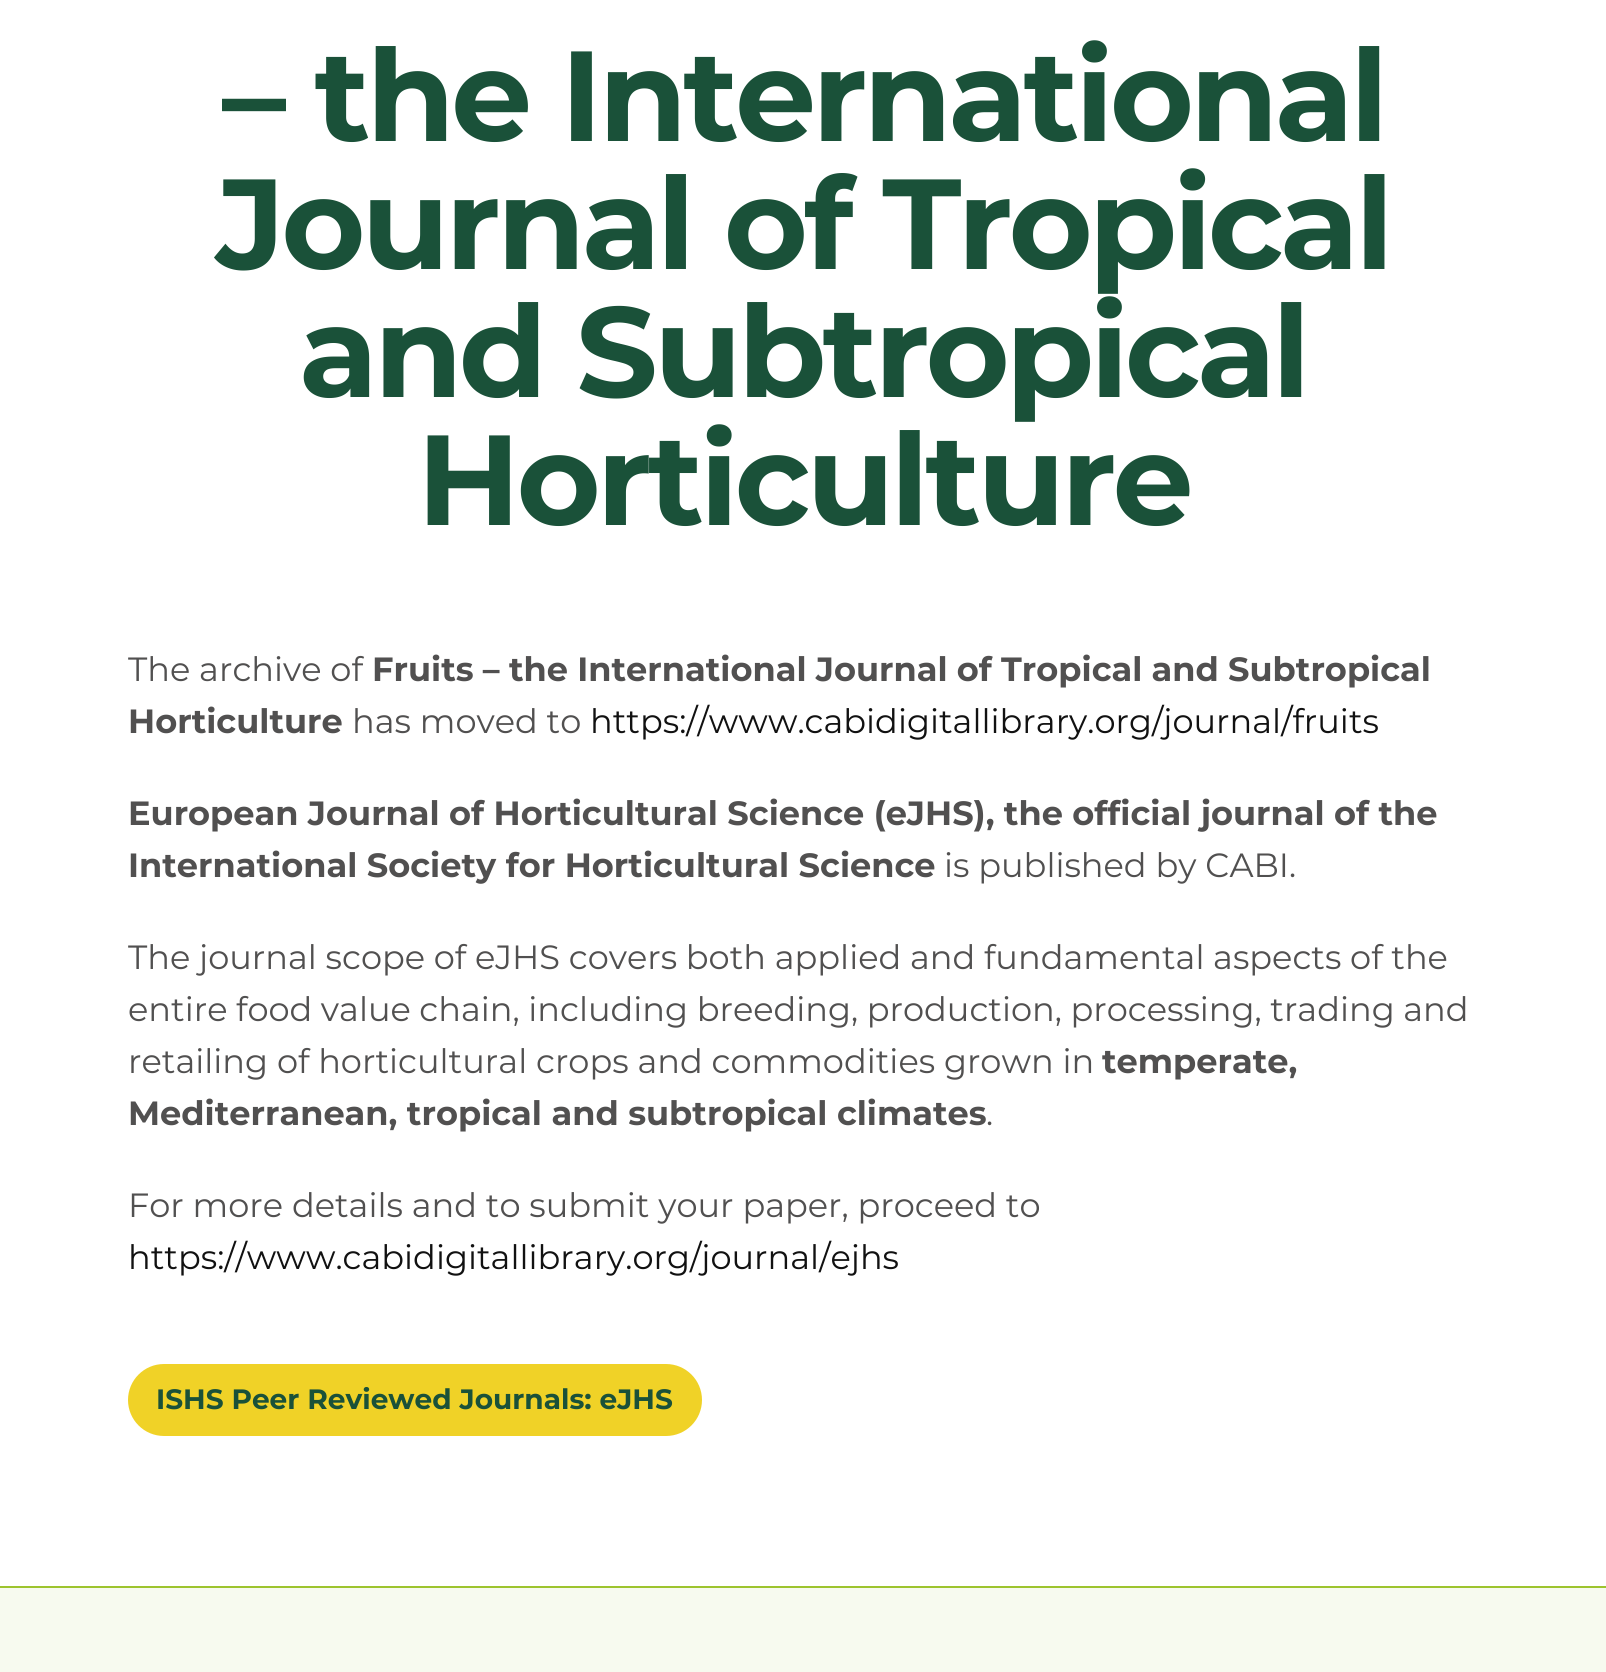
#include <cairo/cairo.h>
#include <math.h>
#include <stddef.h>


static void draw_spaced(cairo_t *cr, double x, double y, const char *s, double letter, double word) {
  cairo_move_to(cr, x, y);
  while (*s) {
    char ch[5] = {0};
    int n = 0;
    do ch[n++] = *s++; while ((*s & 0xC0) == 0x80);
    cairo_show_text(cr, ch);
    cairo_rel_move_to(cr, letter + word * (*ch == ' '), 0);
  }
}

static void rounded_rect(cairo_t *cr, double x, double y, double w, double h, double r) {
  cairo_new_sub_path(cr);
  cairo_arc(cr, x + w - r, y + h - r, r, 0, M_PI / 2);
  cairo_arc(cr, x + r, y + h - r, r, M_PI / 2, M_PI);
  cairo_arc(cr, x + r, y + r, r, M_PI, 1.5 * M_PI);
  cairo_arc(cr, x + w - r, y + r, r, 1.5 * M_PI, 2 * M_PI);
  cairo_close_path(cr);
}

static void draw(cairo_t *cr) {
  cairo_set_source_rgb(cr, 1, 1, 1);
  cairo_paint(cr);
  cairo_set_source_rgb(cr, 240 / 255.0, 210 / 255.0, 39 / 255.0);
  rounded_rect(cr, 128, 1364, 574, 72, 36);
  cairo_fill(cr);
  cairo_set_source_rgb(cr, 247 / 255.0, 250 / 255.0, 239 / 255.0);
  cairo_rectangle(cr, 0, 1588, 1606, 84);
  cairo_fill(cr);
  cairo_set_source_rgb(cr, 157 / 255.0, 196 / 255.0, 46 / 255.0);
  cairo_rectangle(cr, 0, 1586, 1606, 2);
  cairo_fill(cr);
  cairo_select_font_face(cr, "Montserrat", CAIRO_FONT_SLANT_NORMAL, CAIRO_FONT_WEIGHT_BOLD);
  cairo_set_font_size(cr, 128);
  cairo_set_source_rgb(cr, 26 / 255.0, 81 / 255.0, 57 / 255.0);
  draw_spaced(cr, 222, 141, "– the International", -3.8, 0);
  draw_spaced(cr, 216, 269, "Journal of Tropical", -3.8, 0);
  draw_spaced(cr, 299, 397, "and Subtropical", -3.8, 0);
  draw_spaced(cr, 417, 525, "Horticulture", -3.8, 0);
  cairo_select_font_face(cr, "Montserrat", CAIRO_FONT_SLANT_NORMAL, CAIRO_FONT_WEIGHT_NORMAL);
  cairo_set_font_size(cr, 33.6);
  cairo_set_source_rgb(cr, 81 / 255.0, 80 / 255.0, 80 / 255.0);
  cairo_move_to(cr, 128, 681);
  cairo_show_text(cr, "The archive of");
  cairo_select_font_face(cr, "Montserrat", CAIRO_FONT_SLANT_NORMAL, CAIRO_FONT_WEIGHT_BOLD);
  draw_spaced(cr, 372, 681, "Fruits – the International Journal of Tropical and Subtropical", 0, -0.25);
  cairo_move_to(cr, 128, 733);
  cairo_show_text(cr, "Horticulture");
  cairo_select_font_face(cr, "Montserrat", CAIRO_FONT_SLANT_NORMAL, CAIRO_FONT_WEIGHT_NORMAL);
  cairo_move_to(cr, 352, 733);
  cairo_show_text(cr, "has moved to");
  cairo_set_source_rgb(cr, 17 / 255.0, 17 / 255.0, 17 / 255.0);
  cairo_move_to(cr, 590, 733);
  cairo_show_text(cr, "https://www.cabidigitallibrary.org/journal/fruits");
  cairo_select_font_face(cr, "Montserrat", CAIRO_FONT_SLANT_NORMAL, CAIRO_FONT_WEIGHT_BOLD);
  cairo_set_source_rgb(cr, 81 / 255.0, 80 / 255.0, 80 / 255.0);
  draw_spaced(cr, 128, 825, "European Journal of Horticultural Science (eJHS), the official journal of the", 0, -0.1);
  cairo_move_to(cr, 128, 877);
  cairo_show_text(cr, "International Society for Horticultural Science");
  cairo_select_font_face(cr, "Montserrat", CAIRO_FONT_SLANT_NORMAL, CAIRO_FONT_WEIGHT_NORMAL);
  cairo_move_to(cr, 944, 877);
  cairo_show_text(cr, "is published by CABI.");
  draw_spaced(cr, 128, 969, "The journal scope of eJHS covers both applied and fundamental aspects of the", 0, -0.1);
  draw_spaced(cr, 128, 1021, "entire food value chain, including breeding, production, processing, trading and", 0, -0.25);
  cairo_move_to(cr, 128, 1073);
  cairo_show_text(cr, "retailing of horticultural crops and commodities grown in");
  cairo_select_font_face(cr, "Montserrat", CAIRO_FONT_SLANT_NORMAL, CAIRO_FONT_WEIGHT_BOLD);
  cairo_move_to(cr, 1102, 1073);
  cairo_show_text(cr, "temperate,");
  cairo_move_to(cr, 128, 1125);
  cairo_show_text(cr, "Mediterranean, tropical and subtropical climates");
  cairo_select_font_face(cr, "Montserrat", CAIRO_FONT_SLANT_NORMAL, CAIRO_FONT_WEIGHT_NORMAL);
  cairo_move_to(cr, 986, 1125);
  cairo_show_text(cr, ".");
  cairo_move_to(cr, 128, 1217);
  cairo_show_text(cr, "For more details and to submit your paper, proceed to");
  cairo_set_source_rgb(cr, 17 / 255.0, 17 / 255.0, 17 / 255.0);
  cairo_move_to(cr, 128, 1269);
  cairo_show_text(cr, "https://www.cabidigitallibrary.org/journal/ejhs");
  cairo_select_font_face(cr, "Montserrat", CAIRO_FONT_SLANT_NORMAL, CAIRO_FONT_WEIGHT_BOLD);
  cairo_set_font_size(cr, 28);
  cairo_set_source_rgb(cr, 26 / 255.0, 81 / 255.0, 57 / 255.0);
  cairo_move_to(cr, 156, 1409);
  cairo_show_text(cr, "ISHS Peer Reviewed Journals: eJHS");
}

int main(void) {
  cairo_surface_t *surface = cairo_image_surface_create(CAIRO_FORMAT_RGB24, 1606, 1672);
  cairo_t *cr = cairo_create(surface);
  cairo_font_options_t *options = cairo_font_options_create();
  cairo_font_options_set_hint_metrics(options, CAIRO_HINT_METRICS_OFF);
  cairo_font_options_set_hint_style(options, CAIRO_HINT_STYLE_NONE);
  cairo_set_font_options(cr, options);
  cairo_set_miter_limit(cr, 4);
  draw(cr);
  cairo_surface_write_to_png(surface, "out.png");
  cairo_font_options_destroy(options);
  cairo_destroy(cr);
  cairo_surface_destroy(surface);
  return 0;
}
